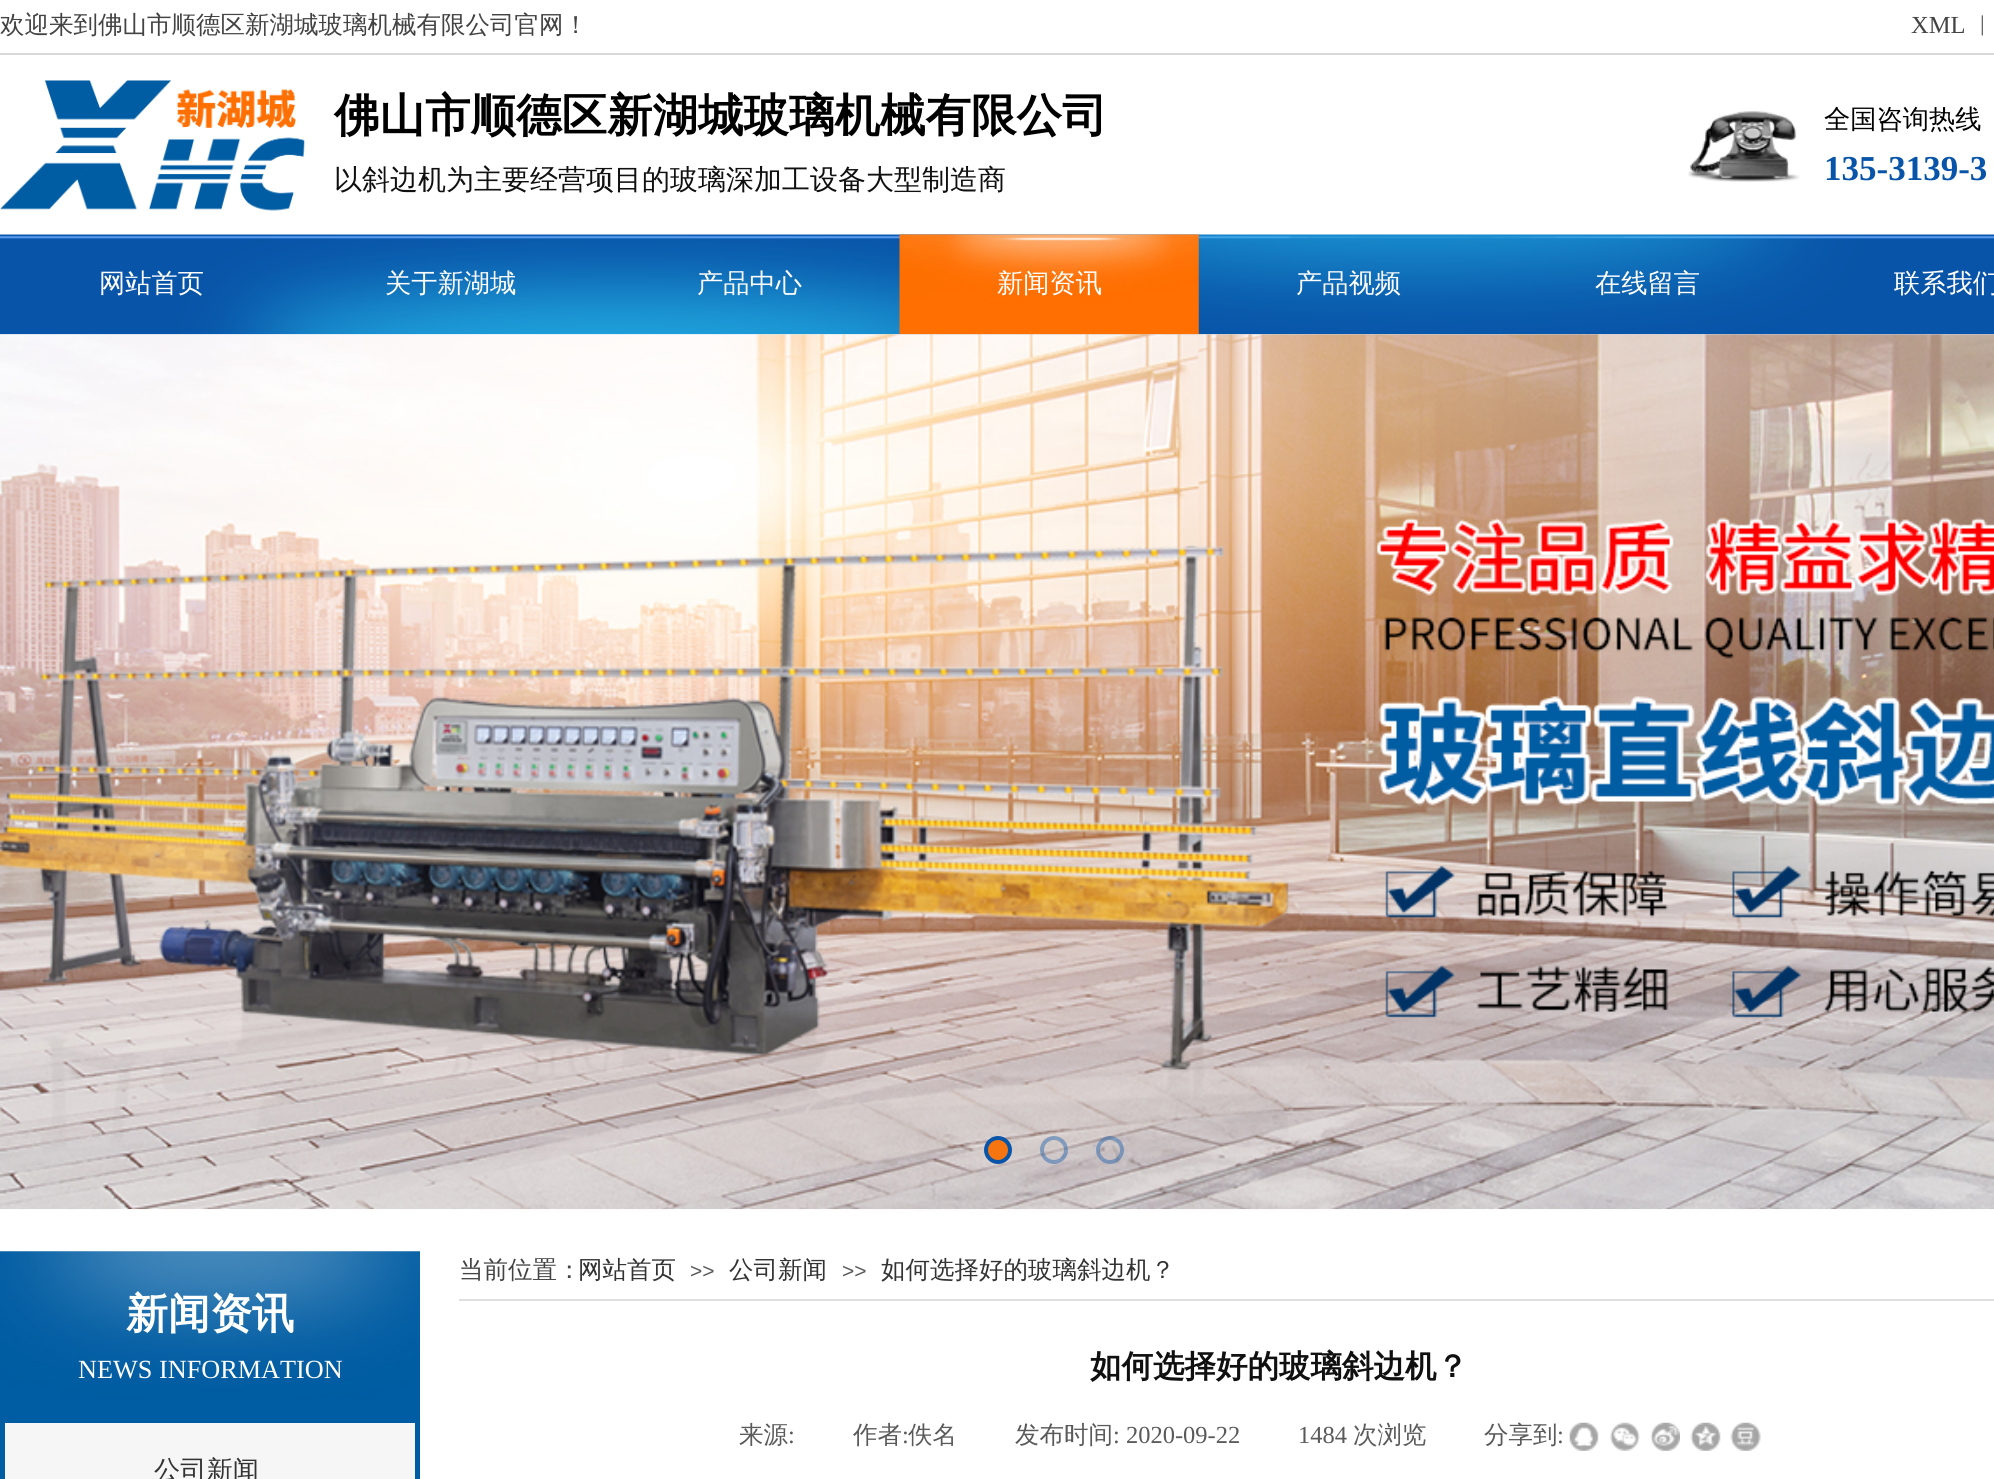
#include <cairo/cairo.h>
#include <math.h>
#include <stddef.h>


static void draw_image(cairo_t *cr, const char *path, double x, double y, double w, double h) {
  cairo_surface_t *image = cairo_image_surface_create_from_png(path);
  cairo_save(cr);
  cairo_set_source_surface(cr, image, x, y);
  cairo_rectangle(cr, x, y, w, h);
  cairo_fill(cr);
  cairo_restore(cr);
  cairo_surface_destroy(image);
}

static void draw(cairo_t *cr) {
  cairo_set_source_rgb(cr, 1, 1, 1);
  cairo_paint(cr);
  cairo_set_source_rgb(cr, 217 / 255.0, 217 / 255.0, 217 / 255.0);
  cairo_rectangle(cr, 0, 53, 1994, 2);
  cairo_fill(cr);
  draw_image(cr, "images/1.png", 0, 80, 305, 131);
  draw_image(cr, "images/2.png", 1688, 111, 112, 71);
  draw_image(cr, "images/3.png", 0, 234, 1994, 101);
  draw_image(cr, "images/4.png", 899, 234, 300, 101);
  draw_image(cr, "images/5.png", 0, 334, 1994, 876);
  cairo_set_source_rgb(cr, 246 / 255.0, 117 / 255.0, 16 / 255.0);
  cairo_arc(cr, 998, 1150, 12, 0, 2 * M_PI);
  cairo_fill_preserve(cr);
  cairo_set_source_rgb(cr, 8 / 255.0, 84 / 255.0, 168 / 255.0);
  cairo_set_line_width(cr, 4);
  cairo_stroke(cr);
  cairo_arc(cr, 1054, 1150, 12, 0, 2 * M_PI);
  cairo_set_source_rgba(cr, 8 / 255.0, 84 / 255.0, 168 / 255.0, 0.4);
  cairo_stroke(cr);
  cairo_arc(cr, 1110, 1150, 12, 0, 2 * M_PI);
  cairo_stroke(cr);
  draw_image(cr, "images/6.png", 0, 1251, 420, 228);
  cairo_set_source_rgb(cr, 223 / 255.0, 223 / 255.0, 223 / 255.0);
  cairo_rectangle(cr, 459, 1299, 1535, 2);
  cairo_fill(cr);
  draw_image(cr, "images/7.png", 1569, 1422, 30, 29);
  draw_image(cr, "images/8.png", 1610, 1422, 30, 29);
  draw_image(cr, "images/9.png", 1650, 1422, 30, 29);
  draw_image(cr, "images/10.png", 1690, 1422, 31, 29);
  draw_image(cr, "images/11.png", 1730, 1422, 31, 29);
  cairo_set_source_rgb(cr, 246 / 255.0, 246 / 255.0, 246 / 255.0);
  cairo_rectangle(cr, 5, 1423, 410, 56);
  cairo_fill(cr);
  cairo_select_font_face(cr, "WenQuanYi Zen Hei Medium", CAIRO_FONT_SLANT_NORMAL, CAIRO_FONT_WEIGHT_NORMAL);
  cairo_set_font_size(cr, 24.5);
  cairo_set_source_rgb(cr, 67 / 255.0, 67 / 255.0, 67 / 255.0);
  cairo_move_to(cr, 0, 33);
  cairo_show_text(cr, "欢迎来到佛山市顺德区新湖城玻璃机械有限公司官网！");
  cairo_select_font_face(cr, "Liberation Serif", CAIRO_FONT_SLANT_NORMAL, CAIRO_FONT_WEIGHT_NORMAL);
  cairo_move_to(cr, 1911, 33);
  cairo_show_text(cr, "XML");
  cairo_select_font_face(cr, "WenQuanYi Zen Hei Medium", CAIRO_FONT_SLANT_NORMAL, CAIRO_FONT_WEIGHT_NORMAL);
  cairo_move_to(cr, 1971, 33);
  cairo_show_text(cr, "︱");
  cairo_select_font_face(cr, "WenQuanYi Zen Hei", CAIRO_FONT_SLANT_NORMAL, CAIRO_FONT_WEIGHT_BOLD);
  cairo_set_font_size(cr, 45.5);
  cairo_set_source_rgb(cr, 0, 0, 0);
  cairo_move_to(cr, 334, 131);
  cairo_show_text(cr, "佛山市顺德区新湖城玻璃机械有限公司");
  cairo_select_font_face(cr, "WenQuanYi Zen Hei Medium", CAIRO_FONT_SLANT_NORMAL, CAIRO_FONT_WEIGHT_NORMAL);
  cairo_set_font_size(cr, 26.25);
  cairo_move_to(cr, 1824, 128);
  cairo_show_text(cr, "全国咨询热线");
  cairo_select_font_face(cr, "Liberation Serif", CAIRO_FONT_SLANT_NORMAL, CAIRO_FONT_WEIGHT_BOLD);
  cairo_set_font_size(cr, 35);
  cairo_set_source_rgb(cr, 8 / 255.0, 84 / 255.0, 168 / 255.0);
  cairo_move_to(cr, 1824, 180);
  cairo_show_text(cr, "135-3139-3");
  cairo_select_font_face(cr, "WenQuanYi Zen Hei Medium", CAIRO_FONT_SLANT_NORMAL, CAIRO_FONT_WEIGHT_NORMAL);
  cairo_set_font_size(cr, 28);
  cairo_set_source_rgb(cr, 16 / 255.0, 16 / 255.0, 16 / 255.0);
  cairo_move_to(cr, 334, 189);
  cairo_show_text(cr, "以斜边机为主要经营项目的玻璃深加工设备大型制造商");
  cairo_set_font_size(cr, 26.25);
  cairo_set_source_rgb(cr, 1, 1, 1);
  cairo_move_to(cr, 99, 292);
  cairo_show_text(cr, "网站首页");
  cairo_move_to(cr, 385, 292);
  cairo_show_text(cr, "关于新湖城");
  cairo_move_to(cr, 697, 292);
  cairo_show_text(cr, "产品中心");
  cairo_move_to(cr, 997, 292);
  cairo_show_text(cr, "新闻资讯");
  cairo_move_to(cr, 1296, 292);
  cairo_show_text(cr, "产品视频");
  cairo_move_to(cr, 1595, 292);
  cairo_show_text(cr, "在线留言");
  cairo_move_to(cr, 1894, 292);
  cairo_show_text(cr, "联系我们");
  cairo_set_font_size(cr, 24.5);
  cairo_set_source_rgb(cr, 67 / 255.0, 67 / 255.0, 67 / 255.0);
  cairo_move_to(cr, 459, 1278);
  cairo_show_text(cr, "当前位置：");
  cairo_set_source_rgb(cr, 51 / 255.0, 51 / 255.0, 51 / 255.0);
  cairo_move_to(cr, 578, 1278);
  cairo_show_text(cr, "网站首页");
  cairo_select_font_face(cr, "Liberation Sans", CAIRO_FONT_SLANT_NORMAL, CAIRO_FONT_WEIGHT_NORMAL);
  cairo_set_font_size(cr, 21);
  cairo_set_source_rgb(cr, 90 / 255.0, 90 / 255.0, 90 / 255.0);
  cairo_move_to(cr, 690, 1278);
  cairo_show_text(cr, ">>");
  cairo_select_font_face(cr, "WenQuanYi Zen Hei Medium", CAIRO_FONT_SLANT_NORMAL, CAIRO_FONT_WEIGHT_NORMAL);
  cairo_set_font_size(cr, 24.5);
  cairo_set_source_rgb(cr, 51 / 255.0, 51 / 255.0, 51 / 255.0);
  cairo_move_to(cr, 729, 1278);
  cairo_show_text(cr, "公司新闻");
  cairo_select_font_face(cr, "Liberation Sans", CAIRO_FONT_SLANT_NORMAL, CAIRO_FONT_WEIGHT_NORMAL);
  cairo_set_font_size(cr, 21);
  cairo_set_source_rgb(cr, 90 / 255.0, 90 / 255.0, 90 / 255.0);
  cairo_move_to(cr, 842, 1278);
  cairo_show_text(cr, ">>");
  cairo_select_font_face(cr, "WenQuanYi Zen Hei Medium", CAIRO_FONT_SLANT_NORMAL, CAIRO_FONT_WEIGHT_NORMAL);
  cairo_set_font_size(cr, 24.5);
  cairo_set_source_rgb(cr, 51 / 255.0, 51 / 255.0, 51 / 255.0);
  cairo_move_to(cr, 881, 1278);
  cairo_show_text(cr, "如何选择好的玻璃斜边机？");
  cairo_select_font_face(cr, "WenQuanYi Zen Hei", CAIRO_FONT_SLANT_NORMAL, CAIRO_FONT_WEIGHT_BOLD);
  cairo_set_font_size(cr, 42);
  cairo_set_source_rgb(cr, 1, 1, 1);
  cairo_move_to(cr, 126, 1328);
  cairo_show_text(cr, "新闻资讯");
  cairo_select_font_face(cr, "Liberation Serif", CAIRO_FONT_SLANT_NORMAL, CAIRO_FONT_WEIGHT_NORMAL);
  cairo_set_font_size(cr, 26.25);
  cairo_move_to(cr, 78, 1378);
  cairo_show_text(cr, "NEWS INFORMATION");
  cairo_select_font_face(cr, "WenQuanYi Zen Hei", CAIRO_FONT_SLANT_NORMAL, CAIRO_FONT_WEIGHT_BOLD);
  cairo_set_font_size(cr, 31.5);
  cairo_set_source_rgb(cr, 16 / 255.0, 16 / 255.0, 16 / 255.0);
  cairo_move_to(cr, 1090, 1377);
  cairo_show_text(cr, "如何选择好的玻璃斜边机？");
  cairo_select_font_face(cr, "WenQuanYi Zen Hei Medium", CAIRO_FONT_SLANT_NORMAL, CAIRO_FONT_WEIGHT_NORMAL);
  cairo_set_font_size(cr, 24.5);
  cairo_set_source_rgb(cr, 90 / 255.0, 90 / 255.0, 90 / 255.0);
  cairo_move_to(cr, 739, 1443);
  cairo_show_text(cr, "来源");
  cairo_select_font_face(cr, "Liberation Serif", CAIRO_FONT_SLANT_NORMAL, CAIRO_FONT_WEIGHT_NORMAL);
  cairo_move_to(cr, 788, 1443);
  cairo_show_text(cr, ":");
  cairo_select_font_face(cr, "WenQuanYi Zen Hei Medium", CAIRO_FONT_SLANT_NORMAL, CAIRO_FONT_WEIGHT_NORMAL);
  cairo_move_to(cr, 853, 1443);
  cairo_show_text(cr, "作者");
  cairo_select_font_face(cr, "Liberation Serif", CAIRO_FONT_SLANT_NORMAL, CAIRO_FONT_WEIGHT_NORMAL);
  cairo_move_to(cr, 902, 1443);
  cairo_show_text(cr, ":");
  cairo_select_font_face(cr, "WenQuanYi Zen Hei Medium", CAIRO_FONT_SLANT_NORMAL, CAIRO_FONT_WEIGHT_NORMAL);
  cairo_move_to(cr, 908, 1443);
  cairo_show_text(cr, "佚名");
  cairo_move_to(cr, 1015, 1443);
  cairo_show_text(cr, "发布时间");
  cairo_select_font_face(cr, "Liberation Serif", CAIRO_FONT_SLANT_NORMAL, CAIRO_FONT_WEIGHT_NORMAL);
  cairo_move_to(cr, 1113, 1443);
  cairo_show_text(cr, ": 2020-09-22");
  cairo_move_to(cr, 1298, 1443);
  cairo_show_text(cr, "1484");
  cairo_select_font_face(cr, "WenQuanYi Zen Hei Medium", CAIRO_FONT_SLANT_NORMAL, CAIRO_FONT_WEIGHT_NORMAL);
  cairo_move_to(cr, 1353, 1443);
  cairo_show_text(cr, "次浏览");
  cairo_move_to(cr, 1484, 1443);
  cairo_show_text(cr, "分享到");
  cairo_select_font_face(cr, "Liberation Serif", CAIRO_FONT_SLANT_NORMAL, CAIRO_FONT_WEIGHT_NORMAL);
  cairo_move_to(cr, 1557, 1443);
  cairo_show_text(cr, ":");
  cairo_select_font_face(cr, "WenQuanYi Zen Hei Medium", CAIRO_FONT_SLANT_NORMAL, CAIRO_FONT_WEIGHT_NORMAL);
  cairo_set_font_size(cr, 26.25);
  cairo_set_source_rgb(cr, 51 / 255.0, 51 / 255.0, 51 / 255.0);
  cairo_move_to(cr, 154, 1479);
  cairo_show_text(cr, "公司新闻");
}

int main(void) {
  cairo_surface_t *surface = cairo_image_surface_create(CAIRO_FORMAT_RGB24, 1994, 1479);
  cairo_t *cr = cairo_create(surface);
  cairo_font_options_t *options = cairo_font_options_create();
  cairo_font_options_set_hint_metrics(options, CAIRO_HINT_METRICS_OFF);
  cairo_font_options_set_hint_style(options, CAIRO_HINT_STYLE_NONE);
  cairo_set_font_options(cr, options);
  cairo_set_miter_limit(cr, 4);
  draw(cr);
  cairo_surface_write_to_png(surface, "out.png");
  cairo_font_options_destroy(options);
  cairo_destroy(cr);
  cairo_surface_destroy(surface);
  return 0;
}
